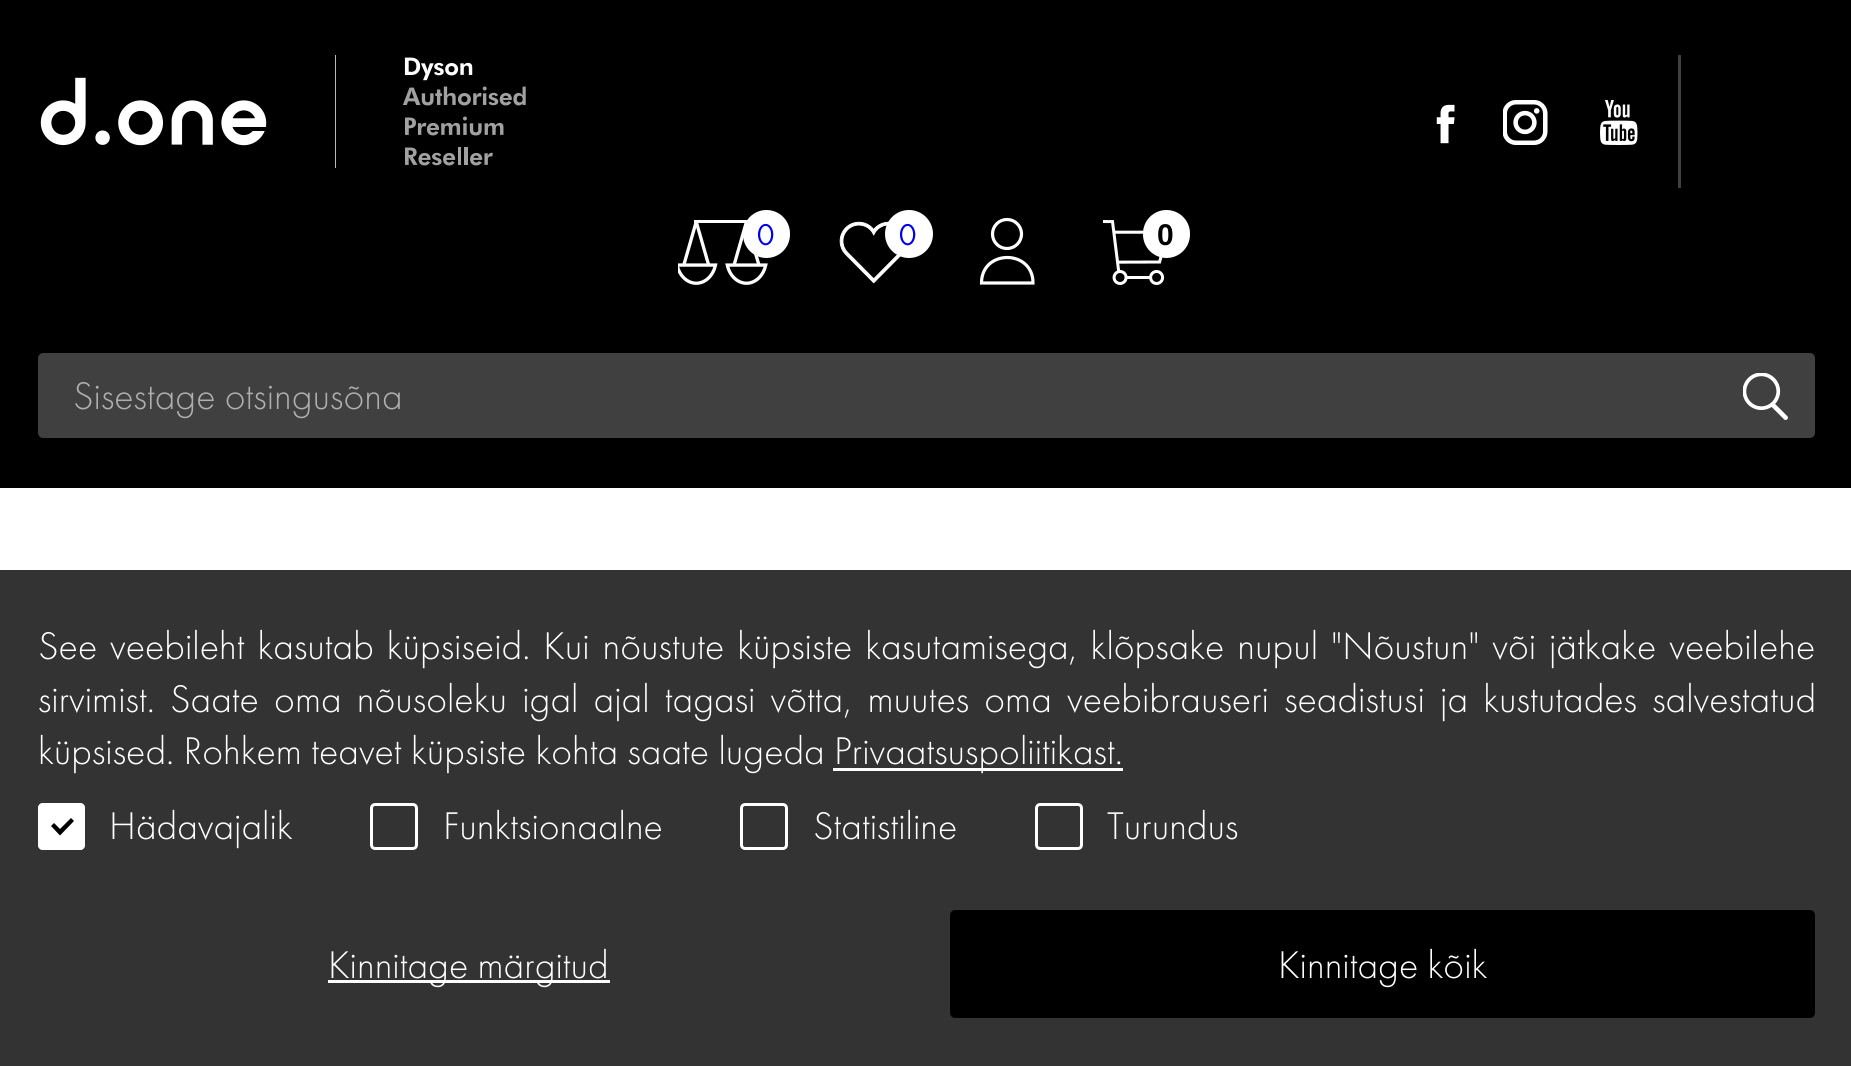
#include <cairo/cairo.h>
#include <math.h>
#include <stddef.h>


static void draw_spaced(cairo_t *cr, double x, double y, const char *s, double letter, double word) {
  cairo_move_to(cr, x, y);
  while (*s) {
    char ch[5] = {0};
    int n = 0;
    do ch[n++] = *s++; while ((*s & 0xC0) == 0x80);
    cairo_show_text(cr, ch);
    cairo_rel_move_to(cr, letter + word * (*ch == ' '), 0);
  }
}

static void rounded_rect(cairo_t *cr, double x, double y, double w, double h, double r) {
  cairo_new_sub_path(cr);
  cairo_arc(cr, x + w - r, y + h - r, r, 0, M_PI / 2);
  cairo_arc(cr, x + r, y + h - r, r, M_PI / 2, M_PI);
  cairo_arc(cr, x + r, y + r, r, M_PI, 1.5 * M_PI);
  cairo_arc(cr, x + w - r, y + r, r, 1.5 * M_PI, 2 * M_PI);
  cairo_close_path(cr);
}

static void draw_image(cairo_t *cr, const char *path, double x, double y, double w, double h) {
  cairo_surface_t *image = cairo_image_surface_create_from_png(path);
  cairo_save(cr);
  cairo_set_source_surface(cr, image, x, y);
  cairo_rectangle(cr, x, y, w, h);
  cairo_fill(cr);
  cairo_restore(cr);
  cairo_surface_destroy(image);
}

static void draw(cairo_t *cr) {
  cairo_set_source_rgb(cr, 1, 1, 1);
  cairo_paint(cr);
  cairo_set_source_rgb(cr, 0, 0, 0);
  cairo_rectangle(cr, 0, 0, 1851, 488);
  cairo_fill(cr);
  draw_image(cr, "images/1.png", 40, 55, 486, 113);
  draw_image(cr, "images/2.png", 1436, 104, 19, 40);
  draw_image(cr, "images/3.png", 1503, 100, 45, 45);
  draw_image(cr, "images/4.png", 1600, 100, 38, 45);
  cairo_set_source_rgb(cr, 64 / 255.0, 64 / 255.0, 64 / 255.0);
  cairo_rectangle(cr, 1678, 55, 3, 133);
  cairo_fill(cr);
  draw_image(cr, "images/5.png", 678, 220, 90, 65);
  cairo_set_source_rgb(cr, 1, 1, 1);
  rounded_rect(cr, 743, 210, 47, 48, 23.5);
  cairo_fill(cr);
  draw_image(cr, "images/6.png", 839, 221, 62, 63);
  cairo_arc(cr, 909, 234, 24, 0, 2 * M_PI);
  cairo_fill(cr);
  cairo_arc(cr, 1007, 234, 14.5, 0, 2 * M_PI);
  cairo_set_line_width(cr, 3.2);
  cairo_stroke(cr);
  cairo_new_path(cr);
  cairo_move_to(cr, 1033, 283);
  cairo_curve_to(cr, 1033, 249, 981.5, 249, 981.5, 283);
  cairo_close_path(cr);
  cairo_set_line_cap(cr, CAIRO_LINE_CAP_ROUND);
  cairo_stroke(cr);
  draw_image(cr, "images/7.png", 1103, 220, 62, 65);
  rounded_rect(cr, 1143, 210, 47, 48, 23.5);
  cairo_fill(cr);
  cairo_set_source_rgb(cr, 64 / 255.0, 64 / 255.0, 64 / 255.0);
  rounded_rect(cr, 39.5, 354.5, 1774, 82, 3.5);
  cairo_fill_preserve(cr);
  cairo_set_line_width(cr, 3);
  cairo_set_line_cap(cr, CAIRO_LINE_CAP_BUTT);
  cairo_stroke(cr);
  draw_image(cr, "images/8.png", 1743, 373, 45, 47);
  cairo_set_source_rgb(cr, 51 / 255.0, 51 / 255.0, 51 / 255.0);
  cairo_rectangle(cr, 0, 570, 1851, 496);
  cairo_fill(cr);
  cairo_set_source_rgb(cr, 1, 1, 1);
  cairo_rectangle(cr, 833, 768, 290, 3);
  cairo_fill(cr);
  rounded_rect(cr, 38, 803, 47, 47, 5);
  cairo_fill(cr);
  cairo_set_source_rgb(cr, 0, 0, 0);
  cairo_new_path(cr);
  cairo_move_to(cr, 51, 826);
  cairo_line_to(cr, 54, 823);
  cairo_line_to(cr, 60, 829);
  cairo_line_to(cr, 71, 818);
  cairo_line_to(cr, 74, 821);
  cairo_line_to(cr, 60, 835.5);
  cairo_close_path(cr);
  cairo_fill(cr);
  rounded_rect(cr, 39.5, 804.5, 44, 44, 3.5);
  cairo_set_source_rgb(cr, 1, 1, 1);
  cairo_stroke(cr);
  rounded_rect(cr, 371.5, 804.5, 45, 44, 3.5);
  cairo_stroke(cr);
  rounded_rect(cr, 741.5, 804.5, 45, 44, 3.5);
  cairo_stroke(cr);
  rounded_rect(cr, 1036.5, 804.5, 45, 44, 3.5);
  cairo_stroke(cr);
  cairo_rectangle(cr, 328, 980, 282, 3);
  cairo_fill(cr);
  cairo_set_source_rgb(cr, 0, 0, 0);
  rounded_rect(cr, 951.5, 911.5, 862, 105, 3.5);
  cairo_fill_preserve(cr);
  cairo_stroke(cr);
  cairo_select_font_face(cr, "Futura PT", CAIRO_FONT_SLANT_NORMAL, CAIRO_FONT_WEIGHT_BOLD);
  cairo_set_font_size(cr, 30);
  cairo_set_source_rgb(cr, 0, 0, 238 / 255.0);
  cairo_move_to(cr, 757, 245);
  cairo_show_text(cr, "0");
  cairo_move_to(cr, 899, 245);
  cairo_show_text(cr, "0");
  cairo_select_font_face(cr, "Liberation Sans", CAIRO_FONT_SLANT_NORMAL, CAIRO_FONT_WEIGHT_BOLD);
  cairo_set_source_rgb(cr, 0, 0, 0);
  cairo_move_to(cr, 1157, 245);
  cairo_show_text(cr, "0");
  cairo_select_font_face(cr, "Futura PT Light", CAIRO_FONT_SLANT_NORMAL, CAIRO_FONT_WEIGHT_NORMAL);
  cairo_set_font_size(cr, 40);
  cairo_set_source_rgb(cr, 175 / 255.0, 175 / 255.0, 175 / 255.0);
  cairo_move_to(cr, 73, 409);
  cairo_show_text(cr, "Sisestage otsingusõna");
  cairo_set_source_rgb(cr, 1, 1, 1);
  draw_spaced(cr, 38, 659, "See veebileht kasutab küpsiseid. Kui nõustute küpsiste kasutamisega, klõpsake nupul \"Nõustun\" või jätkake veebilehe", 0, 3.6);
  draw_spaced(cr, 38, 712, "sirvimist. Saate oma nõusoleku igal ajal tagasi võtta, muutes oma veebibrauseri seadistusi ja kustutades salvestatud", 0, 5.9);
  cairo_move_to(cr, 38, 764);
  cairo_show_text(cr, "küpsised. Rohkem teavet küpsiste kohta saate lugeda");
  cairo_move_to(cr, 834, 764);
  cairo_show_text(cr, "Privaatsuspoliitikast.");
  cairo_move_to(cr, 109, 839);
  cairo_show_text(cr, "Hädavajalik");
  cairo_move_to(cr, 443, 839);
  cairo_show_text(cr, "Funktsionaalne");
  cairo_move_to(cr, 813, 839);
  cairo_show_text(cr, "Statistiline");
  cairo_move_to(cr, 1107, 839);
  cairo_show_text(cr, "Turundus");
  cairo_move_to(cr, 328, 978);
  cairo_show_text(cr, "Kinnitage märgitud");
  cairo_move_to(cr, 1278, 978);
  cairo_show_text(cr, "Kinnitage kõik");
}

int main(void) {
  cairo_surface_t *surface = cairo_image_surface_create(CAIRO_FORMAT_RGB24, 1851, 1066);
  cairo_t *cr = cairo_create(surface);
  cairo_font_options_t *options = cairo_font_options_create();
  cairo_font_options_set_hint_metrics(options, CAIRO_HINT_METRICS_OFF);
  cairo_font_options_set_hint_style(options, CAIRO_HINT_STYLE_NONE);
  cairo_set_font_options(cr, options);
  cairo_set_miter_limit(cr, 4);
  draw(cr);
  cairo_surface_write_to_png(surface, "out.png");
  cairo_font_options_destroy(options);
  cairo_destroy(cr);
  cairo_surface_destroy(surface);
  return 0;
}
